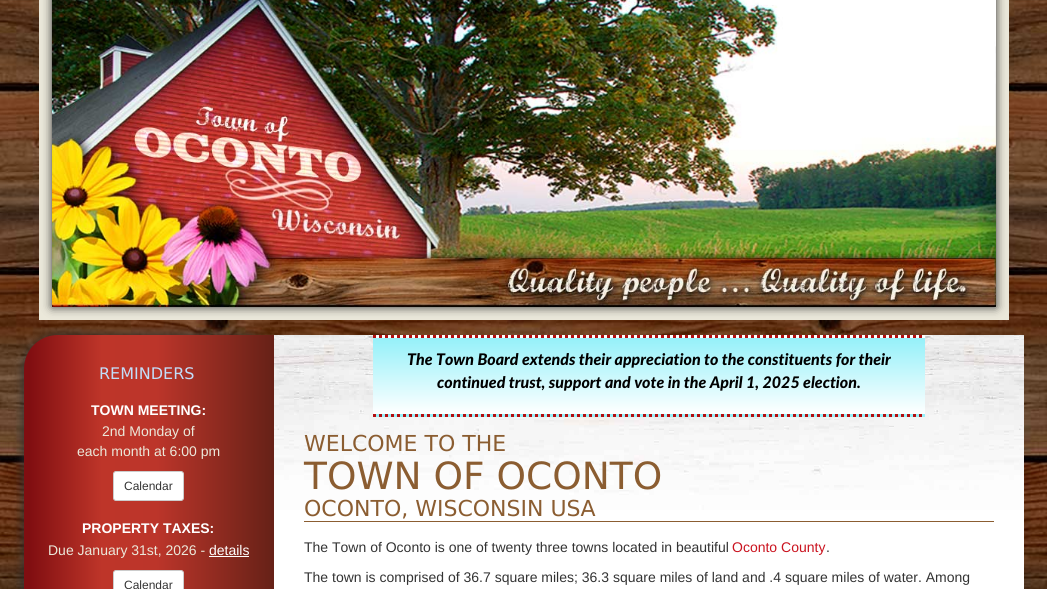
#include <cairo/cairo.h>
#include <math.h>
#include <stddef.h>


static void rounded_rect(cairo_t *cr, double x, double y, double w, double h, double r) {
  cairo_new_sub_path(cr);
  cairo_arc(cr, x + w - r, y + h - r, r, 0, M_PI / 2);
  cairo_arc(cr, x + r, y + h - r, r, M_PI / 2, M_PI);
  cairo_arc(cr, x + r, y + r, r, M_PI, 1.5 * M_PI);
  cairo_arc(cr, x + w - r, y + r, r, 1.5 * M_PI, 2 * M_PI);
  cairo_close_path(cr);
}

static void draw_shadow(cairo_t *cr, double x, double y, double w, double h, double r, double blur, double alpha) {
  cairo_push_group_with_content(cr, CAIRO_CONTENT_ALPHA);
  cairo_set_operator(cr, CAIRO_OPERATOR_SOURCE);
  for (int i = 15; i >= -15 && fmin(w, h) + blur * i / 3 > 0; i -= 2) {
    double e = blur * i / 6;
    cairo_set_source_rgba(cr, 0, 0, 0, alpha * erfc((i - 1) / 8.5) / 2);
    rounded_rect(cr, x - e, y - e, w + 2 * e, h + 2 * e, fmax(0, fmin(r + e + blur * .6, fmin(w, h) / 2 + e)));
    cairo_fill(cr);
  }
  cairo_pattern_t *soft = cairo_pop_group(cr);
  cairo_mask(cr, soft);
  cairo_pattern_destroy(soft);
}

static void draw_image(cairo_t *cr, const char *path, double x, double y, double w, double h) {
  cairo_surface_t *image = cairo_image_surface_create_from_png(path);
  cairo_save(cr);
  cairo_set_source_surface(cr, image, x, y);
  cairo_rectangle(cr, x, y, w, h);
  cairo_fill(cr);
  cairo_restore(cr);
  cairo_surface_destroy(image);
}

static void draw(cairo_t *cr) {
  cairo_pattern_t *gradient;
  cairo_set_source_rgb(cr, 1, 1, 1);
  cairo_paint(cr);
  draw_image(cr, "images/1.png", 0, 0, 1047, 589);
  cairo_rectangle(cr, 45.5, -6.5, 957, 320);
  cairo_set_source_rgb(cr, 235 / 255.0, 232 / 255.0, 218 / 255.0);
  cairo_set_line_width(cr, 13);
  cairo_stroke(cr);
  cairo_set_source_rgb(cr, 51 / 255.0, 51 / 255.0, 51 / 255.0);
  draw_shadow(cr, 52, -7, 944, 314, 0, 5, 1);
  draw_image(cr, "images/2.png", 52, 0, 944, 307);
  cairo_set_source_rgb(cr, 50 / 255.0, 49 / 255.0, 49 / 255.0);
  draw_shadow(cr, 23, 335, 254, 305, 36, 5, 1);
  gradient = cairo_pattern_create_linear(24, 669, 274, 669);
  cairo_pattern_add_color_stop_rgba(gradient, 0.02, 128 / 255.0, 14 / 255.0, 17 / 255.0, 1);
  cairo_pattern_add_color_stop_rgba(gradient, 0.31, 190 / 255.0, 53 / 255.0, 41 / 255.0, 1);
  cairo_pattern_add_color_stop_rgba(gradient, 0.53, 188 / 255.0, 53 / 255.0, 42 / 255.0, 1);
  cairo_pattern_add_color_stop_rgba(gradient, 1, 102 / 255.0, 33 / 255.0, 23 / 255.0, 1);
  cairo_set_source(cr, gradient);
  cairo_pattern_destroy(gradient);
  cairo_new_path(cr);
  cairo_move_to(cr, 58, 335);
  cairo_line_to(cr, 274, 335);
  cairo_line_to(cr, 274, 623);
  cairo_line_to(cr, 58, 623);
  cairo_curve_to(cr, 39, 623, 24, 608, 24, 589);
  cairo_line_to(cr, 24, 369);
  cairo_curve_to(cr, 24, 350, 39, 335, 58, 335);
  cairo_close_path(cr);
  cairo_fill(cr);
  cairo_set_source_rgb(cr, 1, 1, 1);
  rounded_rect(cr, 113.5, 471.5, 70, 29, 2.5);
  cairo_fill_preserve(cr);
  cairo_set_source_rgb(cr, 204 / 255.0, 204 / 255.0, 204 / 255.0);
  cairo_set_line_width(cr, 1);
  cairo_stroke(cr);
  cairo_set_source_rgb(cr, 1, 1, 1);
  cairo_rectangle(cr, 209, 556, 40, 1);
  cairo_fill(cr);
  rounded_rect(cr, 113.5, 570.5, 70, 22, 2.5);
  cairo_fill_preserve(cr);
  cairo_set_source_rgb(cr, 204 / 255.0, 204 / 255.0, 204 / 255.0);
  cairo_stroke(cr);
  cairo_set_source_rgb(cr, 1, 1, 1);
  cairo_rectangle(cr, 274, 510, 750, 79);
  cairo_fill(cr);
  draw_image(cr, "images/3.png", 274, 335, 750, 175);
  gradient = cairo_pattern_create_linear(649, 262, 649, 338);
  cairo_pattern_add_color_stop_rgba(gradient, 0, 149 / 255.0, 240 / 255.0, 249 / 255.0, 1);
  cairo_pattern_add_color_stop_rgba(gradient, 0.17, 166 / 255.0, 243 / 255.0, 250 / 255.0, 1);
  cairo_pattern_add_color_stop_rgba(gradient, 1, 1, 1, 1, 1);
  cairo_set_source(cr, gradient);
  cairo_pattern_destroy(gradient);
  cairo_rectangle(cr, 373, 335, 552, 3);
  cairo_fill(cr);
  gradient = cairo_pattern_create_linear(649, 338, 649, 414);
  cairo_pattern_add_color_stop_rgba(gradient, 0, 149 / 255.0, 240 / 255.0, 249 / 255.0, 1);
  cairo_pattern_add_color_stop_rgba(gradient, 0.17, 166 / 255.0, 243 / 255.0, 250 / 255.0, 1);
  cairo_pattern_add_color_stop_rgba(gradient, 1, 1, 1, 1, 1);
  cairo_set_source(cr, gradient);
  cairo_pattern_destroy(gradient);
  cairo_rectangle(cr, 373, 338, 552, 76);
  cairo_fill(cr);
  gradient = cairo_pattern_create_linear(649, 414, 649, 490);
  cairo_pattern_add_color_stop_rgba(gradient, 0, 149 / 255.0, 240 / 255.0, 249 / 255.0, 1);
  cairo_pattern_add_color_stop_rgba(gradient, 0.17, 166 / 255.0, 243 / 255.0, 250 / 255.0, 1);
  cairo_pattern_add_color_stop_rgba(gradient, 1, 1, 1, 1, 1);
  cairo_set_source(cr, gradient);
  cairo_pattern_destroy(gradient);
  cairo_rectangle(cr, 373, 414, 552, 3);
  cairo_fill(cr);
  cairo_new_path(cr);
  cairo_move_to(cr, 373, 336.5);
  cairo_line_to(cr, 925, 336.5);
  cairo_set_source_rgb(cr, 179 / 255.0, 14 / 255.0, 16 / 255.0);
  cairo_set_line_width(cr, 3);
  cairo_set_dash(cr, (double[]){3, 3}, 2, 0);
  cairo_stroke(cr);
  cairo_new_path(cr);
  cairo_move_to(cr, 373, 415.5);
  cairo_line_to(cr, 925, 415.5);
  cairo_stroke(cr);
  cairo_set_source_rgb(cr, 139 / 255.0, 93 / 255.0, 49 / 255.0);
  cairo_rectangle(cr, 304, 521, 690, 1);
  cairo_fill(cr);
  cairo_select_font_face(cr, "DejaVu Sans", CAIRO_FONT_SLANT_NORMAL, CAIRO_FONT_WEIGHT_NORMAL);
  cairo_set_font_size(cr, 16);
  cairo_set_source_rgb(cr, 194 / 255.0, 221 / 255.0, 249 / 255.0);
  cairo_move_to(cr, 99, 379);
  cairo_show_text(cr, "REMINDERS");
  cairo_select_font_face(cr, "Liberation Sans", CAIRO_FONT_SLANT_NORMAL, CAIRO_FONT_WEIGHT_BOLD);
  cairo_set_font_size(cr, 14);
  cairo_set_source_rgb(cr, 1, 1, 1);
  cairo_move_to(cr, 91, 415);
  cairo_show_text(cr, "TOWN MEETING:");
  cairo_select_font_face(cr, "Liberation Sans", CAIRO_FONT_SLANT_NORMAL, CAIRO_FONT_WEIGHT_NORMAL);
  cairo_set_source_rgb(cr, 235 / 255.0, 232 / 255.0, 218 / 255.0);
  cairo_move_to(cr, 102, 436);
  cairo_show_text(cr, "2nd Monday of");
  cairo_move_to(cr, 77, 456);
  cairo_show_text(cr, "each month at 6:00 pm");
  cairo_set_font_size(cr, 12);
  cairo_set_source_rgb(cr, 51 / 255.0, 51 / 255.0, 51 / 255.0);
  cairo_move_to(cr, 124, 490);
  cairo_show_text(cr, "Calendar");
  cairo_select_font_face(cr, "Liberation Sans", CAIRO_FONT_SLANT_NORMAL, CAIRO_FONT_WEIGHT_BOLD);
  cairo_set_font_size(cr, 14);
  cairo_set_source_rgb(cr, 1, 1, 1);
  cairo_move_to(cr, 82, 533);
  cairo_show_text(cr, "PROPERTY TAXES:");
  cairo_select_font_face(cr, "Liberation Sans", CAIRO_FONT_SLANT_NORMAL, CAIRO_FONT_WEIGHT_NORMAL);
  cairo_set_source_rgb(cr, 235 / 255.0, 232 / 255.0, 218 / 255.0);
  cairo_move_to(cr, 48, 555);
  cairo_show_text(cr, "Due January 31st, 2026 -");
  cairo_set_source_rgb(cr, 1, 1, 1);
  cairo_move_to(cr, 209, 555);
  cairo_show_text(cr, "details");
  cairo_set_font_size(cr, 12);
  cairo_set_source_rgb(cr, 51 / 255.0, 51 / 255.0, 51 / 255.0);
  cairo_move_to(cr, 124, 589);
  cairo_show_text(cr, "Calendar");
  cairo_select_font_face(cr, "Lato Black", CAIRO_FONT_SLANT_ITALIC, CAIRO_FONT_WEIGHT_NORMAL);
  cairo_set_font_size(cr, 16);
  cairo_set_source_rgb(cr, 0, 0, 0);
  cairo_move_to(cr, 407, 365);
  cairo_show_text(cr, "The Town Board extends their appreciation to the constituents for their");
  cairo_move_to(cr, 437, 388);
  cairo_show_text(cr, "continued trust, support and vote in the April 1, 2025 election.");
  cairo_select_font_face(cr, "DejaVu Sans", CAIRO_FONT_SLANT_NORMAL, CAIRO_FONT_WEIGHT_NORMAL);
  cairo_set_font_size(cr, 22);
  cairo_set_source_rgb(cr, 139 / 255.0, 93 / 255.0, 49 / 255.0);
  cairo_move_to(cr, 304, 451);
  cairo_show_text(cr, "WELCOME TO THE");
  cairo_set_font_size(cr, 37.5);
  cairo_move_to(cr, 304, 489);
  cairo_show_text(cr, "TOWN OF OCONTO");
  cairo_set_font_size(cr, 22);
  cairo_move_to(cr, 304, 516);
  cairo_show_text(cr, "OCONTO, WISCONSIN USA");
  cairo_select_font_face(cr, "Liberation Sans", CAIRO_FONT_SLANT_NORMAL, CAIRO_FONT_WEIGHT_NORMAL);
  cairo_set_font_size(cr, 14);
  cairo_set_source_rgb(cr, 51 / 255.0, 51 / 255.0, 51 / 255.0);
  cairo_move_to(cr, 304, 552);
  cairo_show_text(cr, "The Town of Oconto is one of twenty three towns located in beautiful");
  cairo_set_source_rgb(cr, 202 / 255.0, 19 / 255.0, 31 / 255.0);
  cairo_move_to(cr, 732, 552);
  cairo_show_text(cr, "Oconto County");
  cairo_set_source_rgb(cr, 51 / 255.0, 51 / 255.0, 51 / 255.0);
  cairo_move_to(cr, 826, 552);
  cairo_show_text(cr, ".");
  cairo_move_to(cr, 304, 582);
  cairo_show_text(cr, "The town is comprised of 36.7 square miles; 36.3 square miles of land and .4 square miles of water. Among");
}

int main(void) {
  cairo_surface_t *surface = cairo_image_surface_create(CAIRO_FORMAT_RGB24, 1047, 589);
  cairo_t *cr = cairo_create(surface);
  cairo_font_options_t *options = cairo_font_options_create();
  cairo_font_options_set_hint_metrics(options, CAIRO_HINT_METRICS_OFF);
  cairo_font_options_set_hint_style(options, CAIRO_HINT_STYLE_NONE);
  cairo_set_font_options(cr, options);
  cairo_set_miter_limit(cr, 4);
  draw(cr);
  cairo_surface_write_to_png(surface, "out.png");
  cairo_font_options_destroy(options);
  cairo_destroy(cr);
  cairo_surface_destroy(surface);
  return 0;
}
